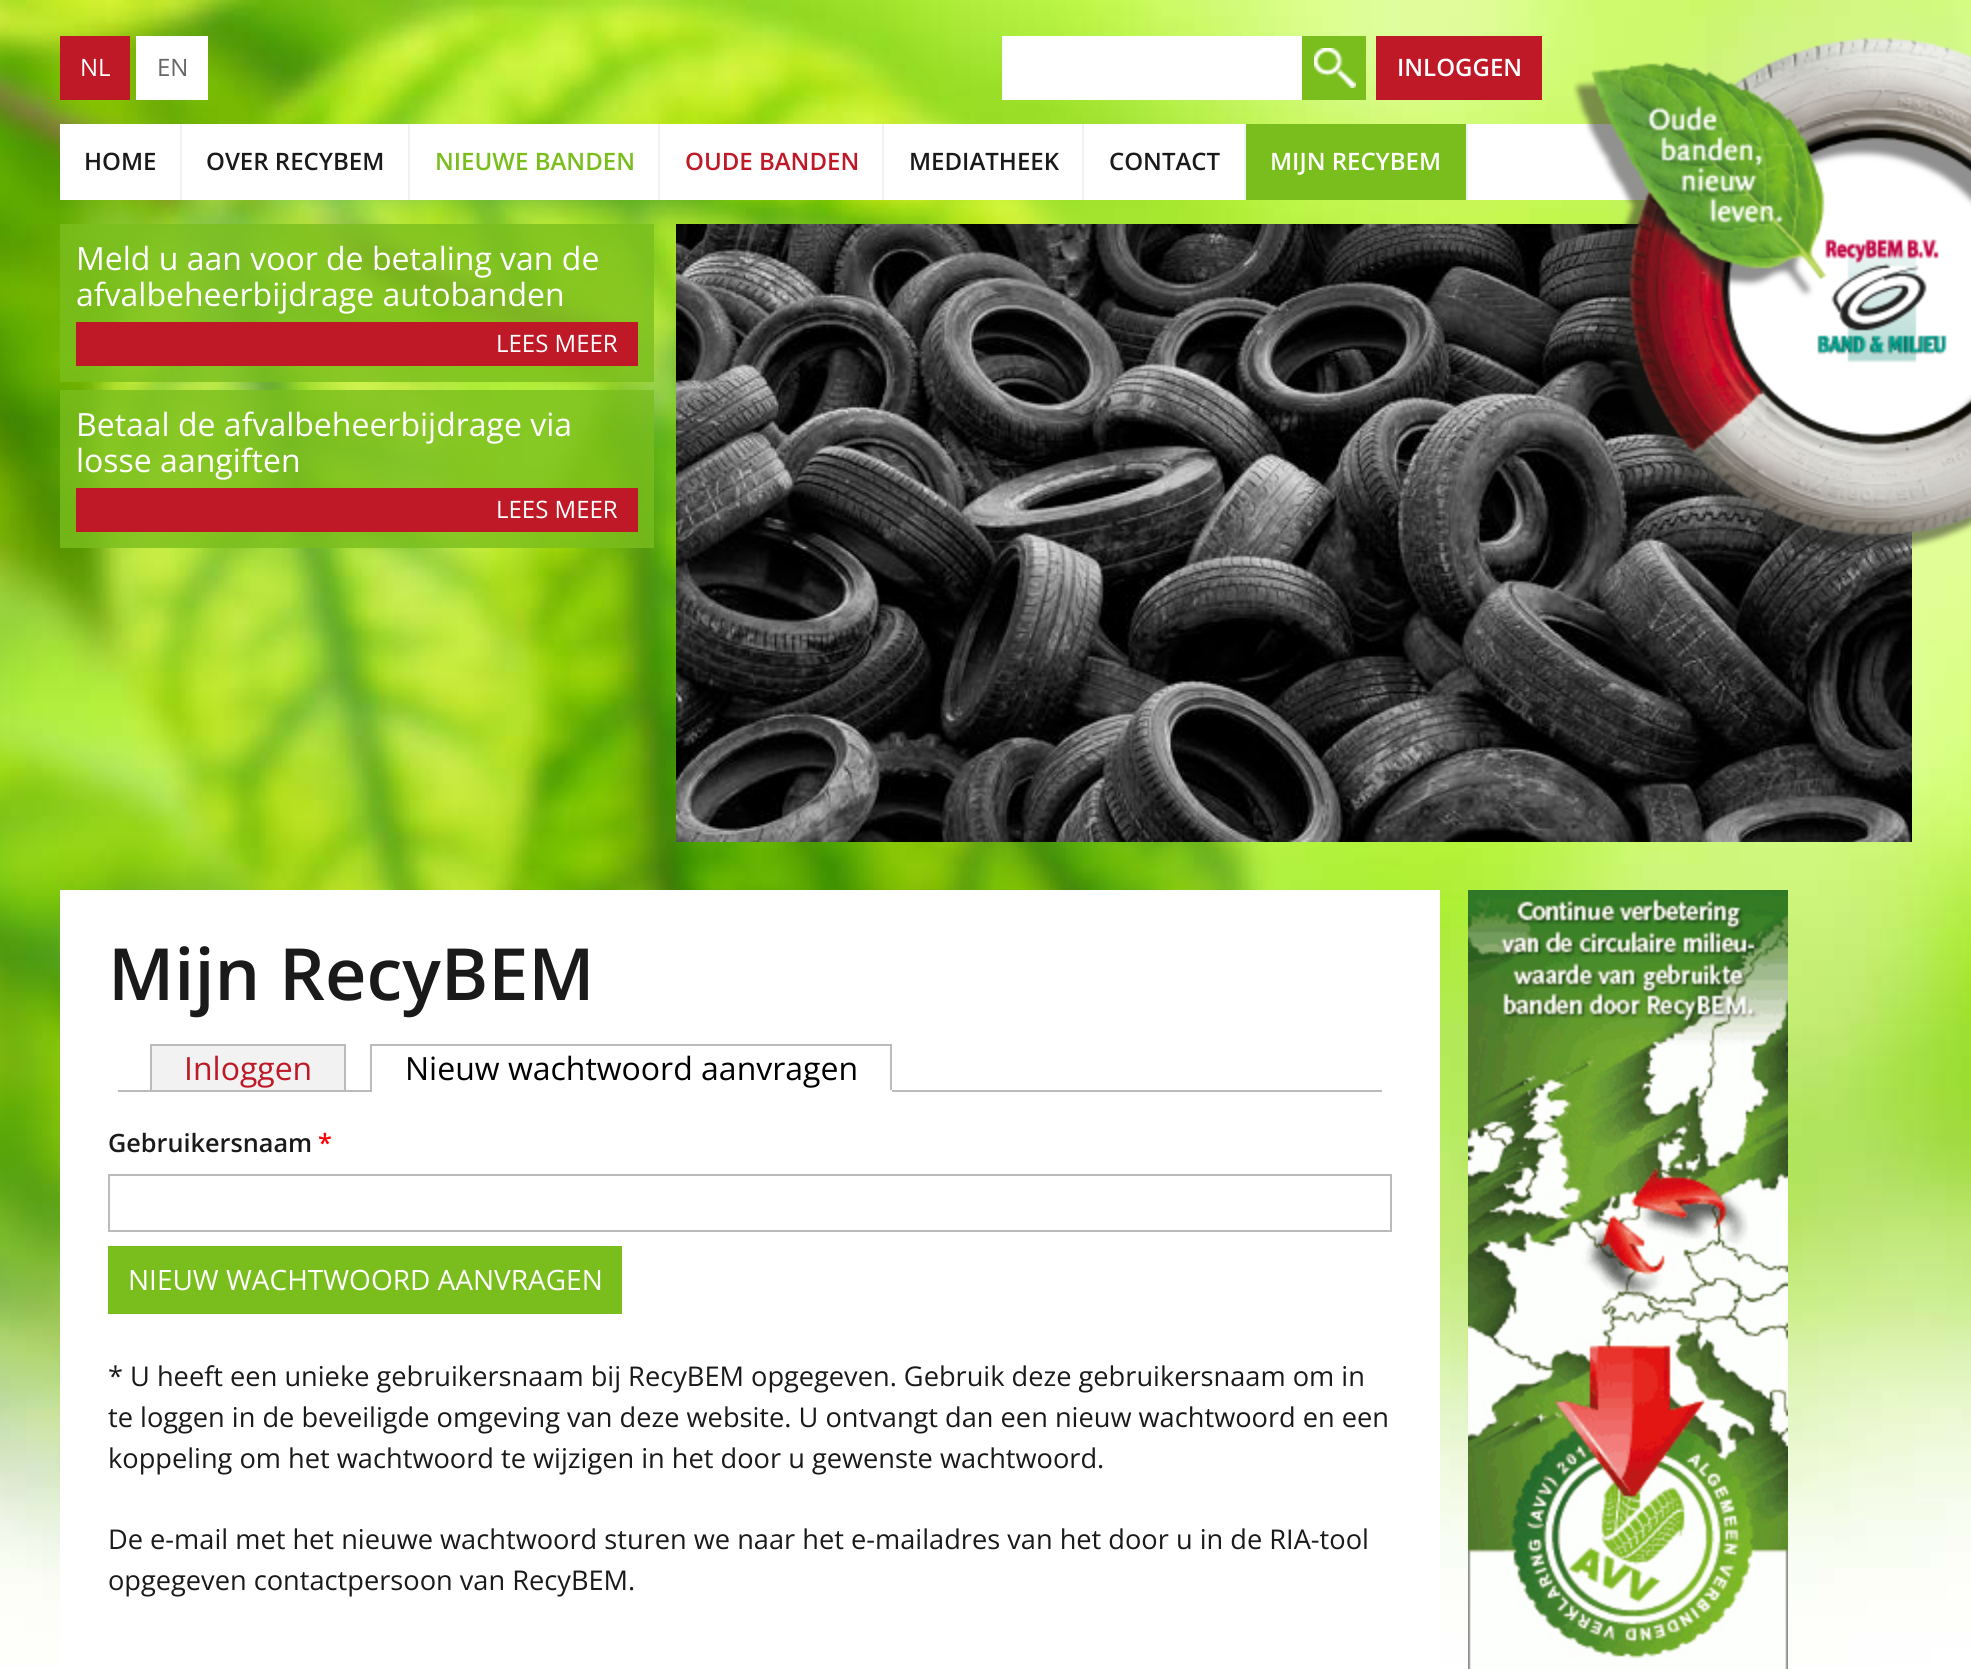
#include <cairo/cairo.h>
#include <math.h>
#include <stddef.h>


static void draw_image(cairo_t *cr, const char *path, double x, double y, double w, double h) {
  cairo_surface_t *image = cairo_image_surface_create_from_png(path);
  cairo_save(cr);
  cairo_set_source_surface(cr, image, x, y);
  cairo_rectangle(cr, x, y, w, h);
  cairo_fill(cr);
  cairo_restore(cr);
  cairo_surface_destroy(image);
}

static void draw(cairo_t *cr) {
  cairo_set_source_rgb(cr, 1, 1, 1);
  cairo_paint(cr);
  draw_image(cr, "images/1.png", 0, 0, 1971, 1666);
  cairo_set_source_rgb(cr, 191 / 255.0, 25 / 255.0, 40 / 255.0);
  cairo_rectangle(cr, 60, 36, 70, 64);
  cairo_fill(cr);
  cairo_set_source_rgb(cr, 1, 1, 1);
  cairo_rectangle(cr, 136, 36, 72, 64);
  cairo_fill(cr);
  cairo_rectangle(cr, 1002, 36, 300, 64);
  cairo_fill(cr);
  cairo_set_source_rgb(cr, 122 / 255.0, 190 / 255.0, 29 / 255.0);
  cairo_rectangle(cr, 1302, 36, 64, 64);
  cairo_fill(cr);
  draw_image(cr, "images/2.png", 1314, 48, 42, 40);
  cairo_set_source_rgb(cr, 191 / 255.0, 25 / 255.0, 40 / 255.0);
  cairo_rectangle(cr, 1376, 36, 166, 64);
  cairo_fill(cr);
  cairo_set_source_rgb(cr, 1, 1, 1);
  cairo_rectangle(cr, 60, 124, 1591, 76);
  cairo_fill(cr);
  draw_image(cr, "images/4.png", 676, 224, 1236, 618);
  draw_image(cr, "images/3.png", 1573, 37, 398, 516);
  cairo_set_source_rgb(cr, 242 / 255.0, 242 / 255.0, 242 / 255.0);
  cairo_rectangle(cr, 180, 124, 2, 76);
  cairo_fill(cr);
  cairo_rectangle(cr, 408, 124, 2, 76);
  cairo_fill(cr);
  cairo_rectangle(cr, 658, 124, 2, 76);
  cairo_fill(cr);
  cairo_rectangle(cr, 882, 124, 2, 76);
  cairo_fill(cr);
  cairo_rectangle(cr, 1082, 124, 2, 76);
  cairo_fill(cr);
  cairo_rectangle(cr, 1244, 124, 2, 76);
  cairo_fill(cr);
  cairo_set_source_rgb(cr, 122 / 255.0, 190 / 255.0, 29 / 255.0);
  cairo_rectangle(cr, 1246, 124, 220, 76);
  cairo_fill(cr);
  cairo_set_source_rgb(cr, 242 / 255.0, 242 / 255.0, 242 / 255.0);
  cairo_rectangle(cr, 1466, 124, 2, 76);
  cairo_fill(cr);
  cairo_set_source_rgba(cr, 122 / 255.0, 190 / 255.0, 29 / 255.0, 0.8);
  cairo_rectangle(cr, 60, 224, 594, 158);
  cairo_fill(cr);
  cairo_set_source_rgb(cr, 191 / 255.0, 25 / 255.0, 40 / 255.0);
  cairo_rectangle(cr, 76, 322, 562, 44);
  cairo_fill(cr);
  cairo_set_source_rgba(cr, 122 / 255.0, 190 / 255.0, 29 / 255.0, 0.8);
  cairo_rectangle(cr, 60, 390, 594, 158);
  cairo_fill(cr);
  cairo_set_source_rgb(cr, 191 / 255.0, 25 / 255.0, 40 / 255.0);
  cairo_rectangle(cr, 76, 488, 562, 44);
  cairo_fill(cr);
  draw_image(cr, "images/5.png", 1468, 890, 320, 779);
  cairo_set_source_rgb(cr, 1, 1, 1);
  cairo_rectangle(cr, 60, 890, 1380, 776);
  cairo_fill(cr);
  cairo_set_source_rgb(cr, 187 / 255.0, 187 / 255.0, 187 / 255.0);
  cairo_rectangle(cr, 118, 1090, 1264, 2);
  cairo_fill(cr);
  cairo_set_source_rgb(cr, 242 / 255.0, 242 / 255.0, 242 / 255.0);
  cairo_rectangle(cr, 152, 1046, 192, 44);
  cairo_fill(cr);
  cairo_set_source_rgb(cr, 187 / 255.0, 187 / 255.0, 187 / 255.0);
  cairo_rectangle(cr, 150, 1044, 196, 2);
  cairo_fill(cr);
  cairo_rectangle(cr, 344, 1044, 2, 46);
  cairo_fill(cr);
  cairo_rectangle(cr, 150, 1044, 2, 46);
  cairo_fill(cr);
  cairo_set_source_rgb(cr, 1, 1, 1);
  cairo_rectangle(cr, 372, 1090, 486, 2);
  cairo_fill(cr);
  cairo_set_source_rgb(cr, 187 / 255.0, 187 / 255.0, 187 / 255.0);
  cairo_rectangle(cr, 370, 1044, 522, 2);
  cairo_fill(cr);
  cairo_rectangle(cr, 370, 1044, 2, 48);
  cairo_fill(cr);
  cairo_rectangle(cr, 890, 1044, 2, 48);
  cairo_fill(cr);
  cairo_set_source_rgb(cr, 1, 1, 1);
  cairo_rectangle(cr, 858, 1090, 34, 2);
  cairo_fill(cr);
  cairo_rectangle(cr, 109, 1175, 1282, 56);
  cairo_set_source_rgb(cr, 187 / 255.0, 187 / 255.0, 187 / 255.0);
  cairo_stroke(cr);
  cairo_set_source_rgb(cr, 122 / 255.0, 190 / 255.0, 29 / 255.0);
  cairo_rectangle(cr, 108, 1246, 514, 68);
  cairo_fill(cr);
  cairo_select_font_face(cr, "Open Sans", CAIRO_FONT_SLANT_NORMAL, CAIRO_FONT_WEIGHT_NORMAL);
  cairo_set_font_size(cr, 24);
  cairo_set_source_rgb(cr, 1, 1, 1);
  cairo_move_to(cr, 80, 76);
  cairo_show_text(cr, "NL");
  cairo_set_source_rgb(cr, 102 / 255.0, 102 / 255.0, 102 / 255.0);
  cairo_move_to(cr, 157, 76);
  cairo_show_text(cr, "EN");
  cairo_select_font_face(cr, "Open Sans SemiBold", CAIRO_FONT_SLANT_NORMAL, CAIRO_FONT_WEIGHT_NORMAL);
  cairo_set_source_rgb(cr, 1, 1, 1);
  cairo_move_to(cr, 1397, 76);
  cairo_show_text(cr, "INLOGGEN");
  cairo_set_source_rgb(cr, 26 / 255.0, 26 / 255.0, 26 / 255.0);
  cairo_move_to(cr, 84, 170);
  cairo_show_text(cr, "HOME");
  cairo_move_to(cr, 206, 170);
  cairo_show_text(cr, "OVER RECYBEM");
  cairo_set_source_rgb(cr, 122 / 255.0, 190 / 255.0, 29 / 255.0);
  cairo_move_to(cr, 435, 170);
  cairo_show_text(cr, "NIEUWE BANDEN");
  cairo_set_source_rgb(cr, 191 / 255.0, 25 / 255.0, 40 / 255.0);
  cairo_move_to(cr, 685, 170);
  cairo_show_text(cr, "OUDE BANDEN");
  cairo_set_source_rgb(cr, 26 / 255.0, 26 / 255.0, 26 / 255.0);
  cairo_move_to(cr, 909, 170);
  cairo_show_text(cr, "MEDIATHEEK");
  cairo_move_to(cr, 1109, 170);
  cairo_show_text(cr, "CONTACT");
  cairo_set_source_rgb(cr, 1, 1, 1);
  cairo_move_to(cr, 1270, 170);
  cairo_show_text(cr, "MIJN RECYBEM");
  cairo_select_font_face(cr, "Open Sans", CAIRO_FONT_SLANT_NORMAL, CAIRO_FONT_WEIGHT_NORMAL);
  cairo_set_font_size(cr, 32);
  cairo_move_to(cr, 76, 270);
  cairo_show_text(cr, "Meld u aan voor de betaling van de");
  cairo_move_to(cr, 76, 306);
  cairo_show_text(cr, "afvalbeheerbijdrage autobanden");
  cairo_set_font_size(cr, 24);
  cairo_move_to(cr, 496, 352);
  cairo_show_text(cr, "LEES MEER");
  cairo_set_font_size(cr, 32);
  cairo_move_to(cr, 76, 436);
  cairo_show_text(cr, "Betaal de afvalbeheerbijdrage via");
  cairo_move_to(cr, 76, 472);
  cairo_show_text(cr, "losse aangiften");
  cairo_set_font_size(cr, 24);
  cairo_move_to(cr, 496, 518);
  cairo_show_text(cr, "LEES MEER");
  cairo_select_font_face(cr, "Open Sans SemiBold", CAIRO_FONT_SLANT_NORMAL, CAIRO_FONT_WEIGHT_NORMAL);
  cairo_set_font_size(cr, 72);
  cairo_set_source_rgb(cr, 26 / 255.0, 26 / 255.0, 26 / 255.0);
  cairo_move_to(cr, 108, 1000);
  cairo_show_text(cr, "Mijn RecyBEM");
  cairo_select_font_face(cr, "Open Sans", CAIRO_FONT_SLANT_NORMAL, CAIRO_FONT_WEIGHT_NORMAL);
  cairo_set_font_size(cr, 32);
  cairo_set_source_rgb(cr, 191 / 255.0, 25 / 255.0, 40 / 255.0);
  cairo_move_to(cr, 184, 1080);
  cairo_show_text(cr, "Inloggen");
  cairo_set_source_rgb(cr, 0, 0, 0);
  cairo_move_to(cr, 405, 1080);
  cairo_show_text(cr, "Nieuw wachtwoord aanvragen");
  cairo_select_font_face(cr, "Open Sans SemiBold", CAIRO_FONT_SLANT_NORMAL, CAIRO_FONT_WEIGHT_NORMAL);
  cairo_set_font_size(cr, 25.25);
  cairo_set_source_rgb(cr, 26 / 255.0, 26 / 255.0, 26 / 255.0);
  cairo_move_to(cr, 108, 1152);
  cairo_show_text(cr, "Gebruikersnaam");
  cairo_set_source_rgb(cr, 1, 0, 0);
  cairo_move_to(cr, 318, 1152);
  cairo_show_text(cr, "*");
  cairo_select_font_face(cr, "Open Sans", CAIRO_FONT_SLANT_NORMAL, CAIRO_FONT_WEIGHT_NORMAL);
  cairo_set_font_size(cr, 28);
  cairo_set_source_rgb(cr, 1, 1, 1);
  cairo_move_to(cr, 128, 1290);
  cairo_show_text(cr, "NIEUW WACHTWOORD AANVRAGEN");
  cairo_set_font_size(cr, 27.2);
  cairo_set_source_rgb(cr, 26 / 255.0, 26 / 255.0, 26 / 255.0);
  cairo_move_to(cr, 108, 1386);
  cairo_show_text(cr, "* U heeft een unieke gebruikersnaam bij RecyBEM opgegeven. Gebruik deze gebruikersnaam om in");
  cairo_move_to(cr, 108, 1427);
  cairo_show_text(cr, "te loggen in de beveiligde omgeving van deze website. U ontvangt dan een nieuw wachtwoord en een");
  cairo_move_to(cr, 108, 1468);
  cairo_show_text(cr, "koppeling om het wachtwoord te wijzigen in het door u gewenste wachtwoord.");
  cairo_move_to(cr, 108, 1549);
  cairo_show_text(cr, "De e-mail met het nieuwe wachtwoord sturen we naar het e-mailadres van het door u in de RIA-tool");
  cairo_move_to(cr, 108, 1590);
  cairo_show_text(cr, "opgegeven contactpersoon van RecyBEM.");
}

int main(void) {
  cairo_surface_t *surface = cairo_image_surface_create(CAIRO_FORMAT_RGB24, 1971, 1669);
  cairo_t *cr = cairo_create(surface);
  cairo_font_options_t *options = cairo_font_options_create();
  cairo_font_options_set_hint_metrics(options, CAIRO_HINT_METRICS_OFF);
  cairo_font_options_set_hint_style(options, CAIRO_HINT_STYLE_NONE);
  cairo_set_font_options(cr, options);
  cairo_set_miter_limit(cr, 4);
  draw(cr);
  cairo_surface_write_to_png(surface, "out.png");
  cairo_font_options_destroy(options);
  cairo_destroy(cr);
  cairo_surface_destroy(surface);
  return 0;
}
